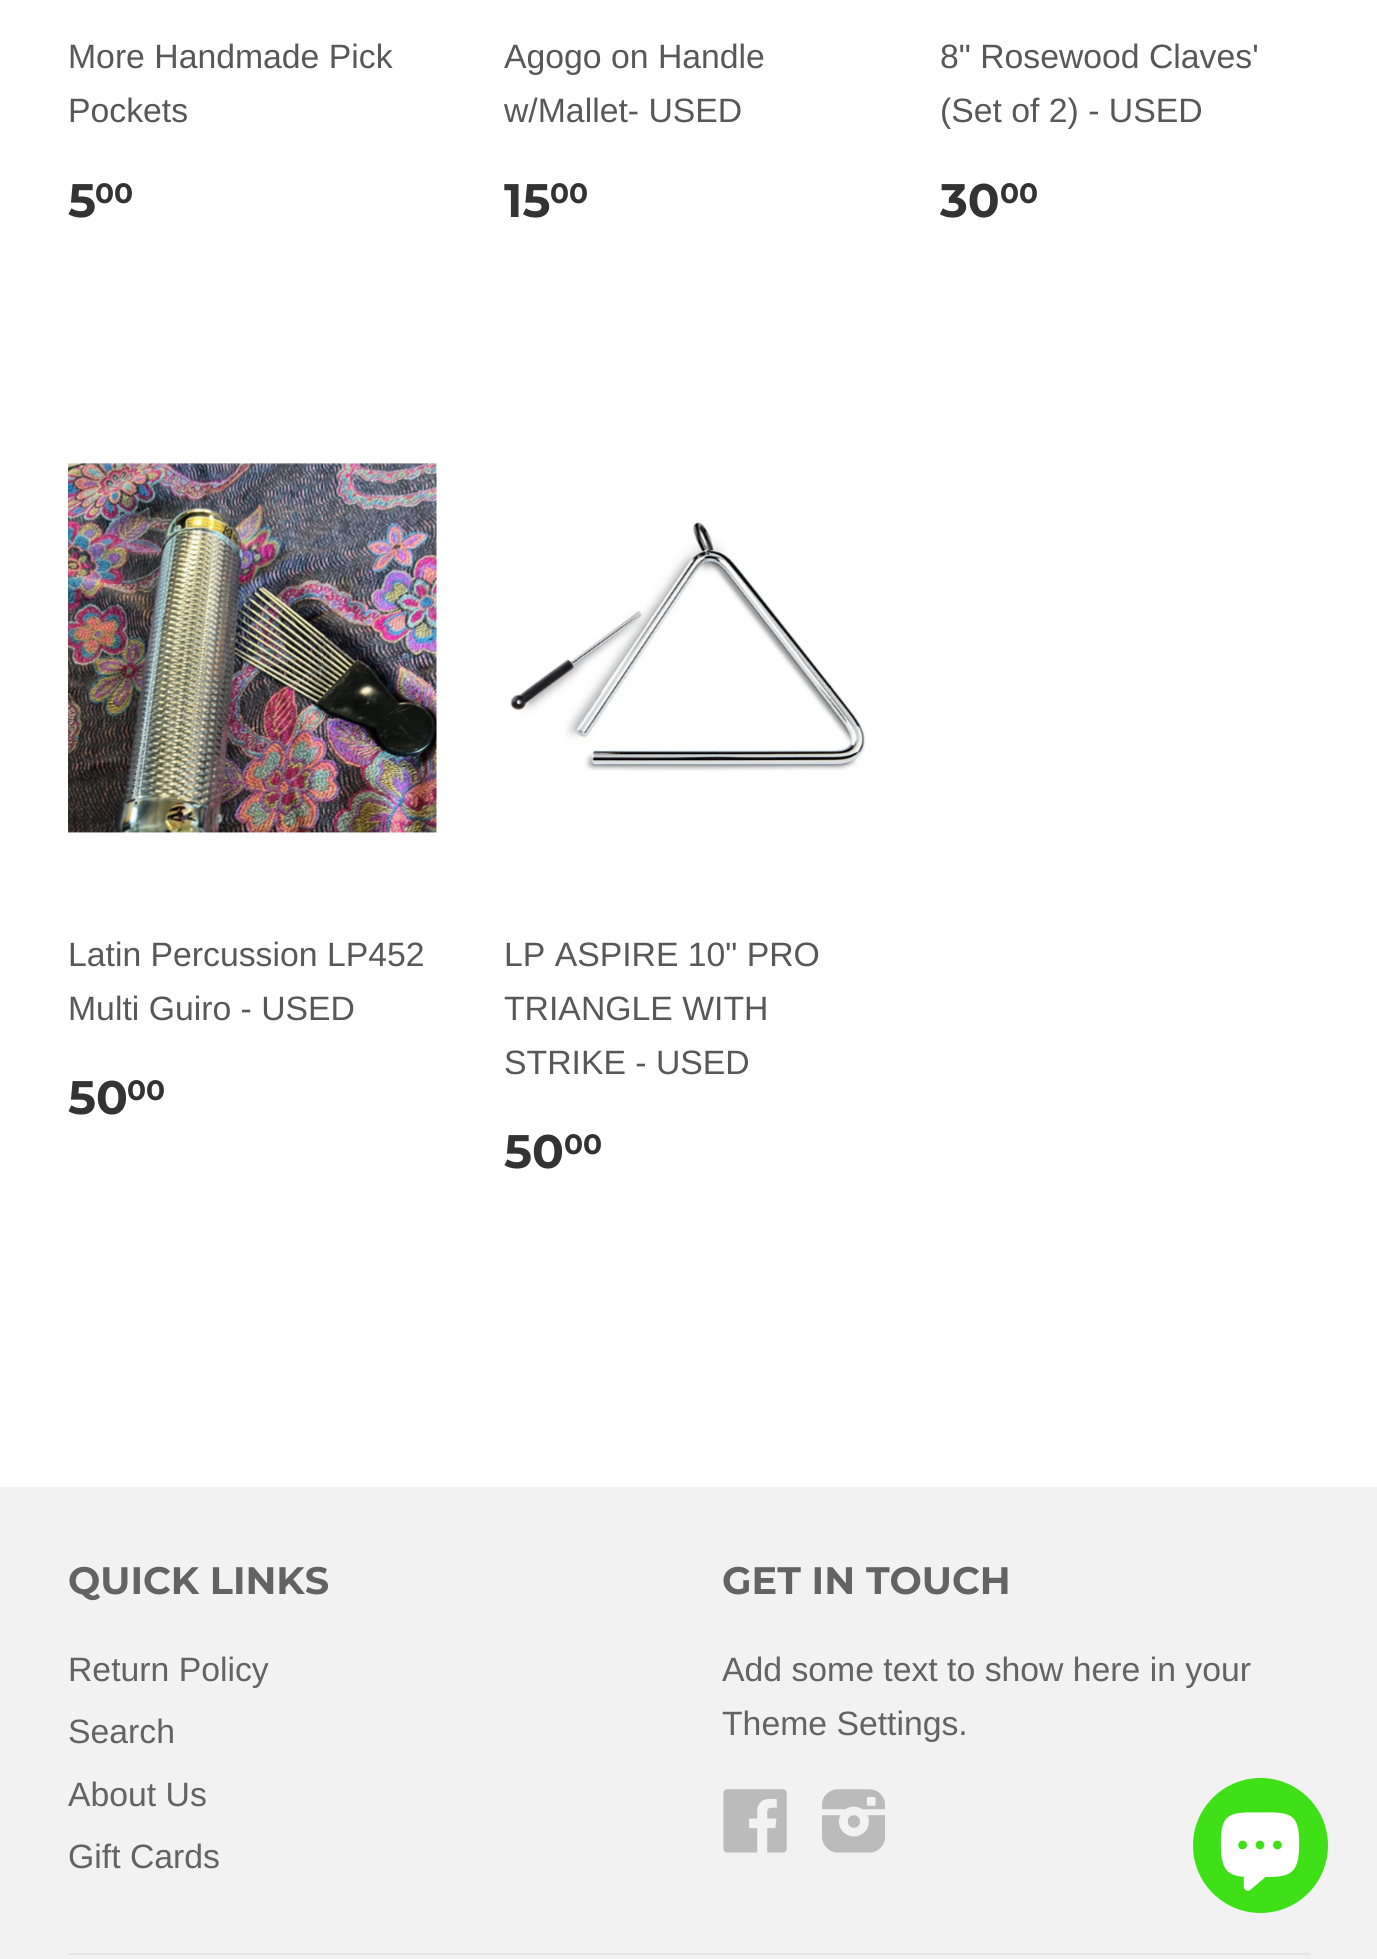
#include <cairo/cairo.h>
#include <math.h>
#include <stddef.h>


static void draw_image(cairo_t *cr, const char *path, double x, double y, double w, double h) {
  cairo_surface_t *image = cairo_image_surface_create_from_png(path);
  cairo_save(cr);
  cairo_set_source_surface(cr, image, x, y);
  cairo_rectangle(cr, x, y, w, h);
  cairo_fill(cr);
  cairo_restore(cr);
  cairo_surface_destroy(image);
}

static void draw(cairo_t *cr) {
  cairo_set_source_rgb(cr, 1, 1, 1);
  cairo_paint(cr);
  draw_image(cr, "images/1.png", 68, 463, 369, 370);
  draw_image(cr, "images/2.png", 510, 521, 356, 250);
  cairo_set_source_rgb(cr, 242 / 255.0, 242 / 255.0, 242 / 255.0);
  cairo_rectangle(cr, 0, 1487, 1377, 472);
  cairo_fill(cr);
  draw_image(cr, "images/3.png", 723, 1789, 64, 64);
  draw_image(cr, "images/4.png", 822, 1789, 63, 64);
  cairo_set_source_rgb(cr, 229 / 255.0, 229 / 255.0, 229 / 255.0);
  cairo_rectangle(cr, 68, 1953, 1242, 2);
  cairo_fill(cr);
  cairo_set_source_rgb(cr, 63 / 255.0, 224 / 255.0, 23 / 255.0);
  cairo_arc(cr, 1260.5, 1845.5, 67.5, 0, 2 * M_PI);
  cairo_fill(cr);
  draw_image(cr, "images/5.png", 1220, 1812, 80, 79);
  cairo_select_font_face(cr, "Liberation Sans", CAIRO_FONT_SLANT_NORMAL, CAIRO_FONT_WEIGHT_NORMAL);
  cairo_set_font_size(cr, 33.75);
  cairo_set_source_rgb(cr, 88 / 255.0, 88 / 255.0, 88 / 255.0);
  cairo_move_to(cr, 68, 68);
  cairo_show_text(cr, "More Handmade Pick");
  cairo_move_to(cr, 68, 122);
  cairo_show_text(cr, "Pockets");
  cairo_select_font_face(cr, "Montserrat Thin", CAIRO_FONT_SLANT_NORMAL, CAIRO_FONT_WEIGHT_NORMAL);
  cairo_set_font_size(cr, 47);
  cairo_set_source_rgb(cr, 51 / 255.0, 51 / 255.0, 51 / 255.0);
  cairo_move_to(cr, 68, 217);
  cairo_show_text(cr, "5");
  cairo_set_font_size(cr, 28);
  cairo_move_to(cr, 95, 203);
  cairo_show_text(cr, "00");
  cairo_select_font_face(cr, "Liberation Sans", CAIRO_FONT_SLANT_NORMAL, CAIRO_FONT_WEIGHT_NORMAL);
  cairo_set_font_size(cr, 33.75);
  cairo_set_source_rgb(cr, 88 / 255.0, 88 / 255.0, 88 / 255.0);
  cairo_move_to(cr, 504, 68);
  cairo_show_text(cr, "Agogo on Handle");
  cairo_move_to(cr, 504, 122);
  cairo_show_text(cr, "w/Mallet- USED");
  cairo_select_font_face(cr, "Montserrat Thin", CAIRO_FONT_SLANT_NORMAL, CAIRO_FONT_WEIGHT_NORMAL);
  cairo_set_font_size(cr, 47);
  cairo_set_source_rgb(cr, 51 / 255.0, 51 / 255.0, 51 / 255.0);
  cairo_move_to(cr, 504, 217);
  cairo_show_text(cr, "15");
  cairo_set_font_size(cr, 28);
  cairo_move_to(cr, 550, 203);
  cairo_show_text(cr, "00");
  cairo_select_font_face(cr, "Liberation Sans", CAIRO_FONT_SLANT_NORMAL, CAIRO_FONT_WEIGHT_NORMAL);
  cairo_set_font_size(cr, 33.75);
  cairo_set_source_rgb(cr, 88 / 255.0, 88 / 255.0, 88 / 255.0);
  cairo_move_to(cr, 940, 68);
  cairo_show_text(cr, "8\" Rosewood Claves'");
  cairo_move_to(cr, 940, 122);
  cairo_show_text(cr, "(Set of 2) - USED");
  cairo_select_font_face(cr, "Montserrat Thin", CAIRO_FONT_SLANT_NORMAL, CAIRO_FONT_WEIGHT_NORMAL);
  cairo_set_font_size(cr, 47);
  cairo_set_source_rgb(cr, 51 / 255.0, 51 / 255.0, 51 / 255.0);
  cairo_move_to(cr, 940, 217);
  cairo_show_text(cr, "30");
  cairo_set_font_size(cr, 28);
  cairo_move_to(cr, 1000, 203);
  cairo_show_text(cr, "00");
  cairo_select_font_face(cr, "Liberation Sans", CAIRO_FONT_SLANT_NORMAL, CAIRO_FONT_WEIGHT_NORMAL);
  cairo_set_font_size(cr, 33.75);
  cairo_set_source_rgb(cr, 88 / 255.0, 88 / 255.0, 88 / 255.0);
  cairo_move_to(cr, 68, 966);
  cairo_show_text(cr, "Latin Percussion LP452");
  cairo_move_to(cr, 68, 1020);
  cairo_show_text(cr, "Multi Guiro - USED");
  cairo_select_font_face(cr, "Montserrat Thin", CAIRO_FONT_SLANT_NORMAL, CAIRO_FONT_WEIGHT_NORMAL);
  cairo_set_font_size(cr, 47);
  cairo_set_source_rgb(cr, 51 / 255.0, 51 / 255.0, 51 / 255.0);
  cairo_move_to(cr, 68, 1114);
  cairo_show_text(cr, "50");
  cairo_set_font_size(cr, 28);
  cairo_move_to(cr, 127, 1100);
  cairo_show_text(cr, "00");
  cairo_select_font_face(cr, "Liberation Sans", CAIRO_FONT_SLANT_NORMAL, CAIRO_FONT_WEIGHT_NORMAL);
  cairo_set_font_size(cr, 33.75);
  cairo_set_source_rgb(cr, 88 / 255.0, 88 / 255.0, 88 / 255.0);
  cairo_move_to(cr, 504, 966);
  cairo_show_text(cr, "LP ASPIRE 10\" PRO");
  cairo_move_to(cr, 504, 1020);
  cairo_show_text(cr, "TRIANGLE WITH");
  cairo_move_to(cr, 504, 1074);
  cairo_show_text(cr, "STRIKE - USED");
  cairo_select_font_face(cr, "Montserrat Thin", CAIRO_FONT_SLANT_NORMAL, CAIRO_FONT_WEIGHT_NORMAL);
  cairo_set_font_size(cr, 47);
  cairo_set_source_rgb(cr, 51 / 255.0, 51 / 255.0, 51 / 255.0);
  cairo_move_to(cr, 504, 1168);
  cairo_show_text(cr, "50");
  cairo_set_font_size(cr, 28);
  cairo_move_to(cr, 564, 1154);
  cairo_show_text(cr, "00");
  cairo_set_font_size(cr, 38.25);
  cairo_set_source_rgb(cr, 99 / 255.0, 99 / 255.0, 99 / 255.0);
  cairo_move_to(cr, 68, 1594);
  cairo_show_text(cr, "QUICK LINKS");
  cairo_select_font_face(cr, "Liberation Sans", CAIRO_FONT_SLANT_NORMAL, CAIRO_FONT_WEIGHT_NORMAL);
  cairo_set_font_size(cr, 33.75);
  cairo_move_to(cr, 68, 1681);
  cairo_show_text(cr, "Return Policy");
  cairo_move_to(cr, 68, 1743);
  cairo_show_text(cr, "Search");
  cairo_move_to(cr, 68, 1806);
  cairo_show_text(cr, "About Us");
  cairo_move_to(cr, 68, 1868);
  cairo_show_text(cr, "Gift Cards");
  cairo_select_font_face(cr, "Montserrat Thin", CAIRO_FONT_SLANT_NORMAL, CAIRO_FONT_WEIGHT_NORMAL);
  cairo_set_font_size(cr, 38.25);
  cairo_move_to(cr, 722, 1594);
  cairo_show_text(cr, "GET IN TOUCH");
  cairo_select_font_face(cr, "Liberation Sans", CAIRO_FONT_SLANT_NORMAL, CAIRO_FONT_WEIGHT_NORMAL);
  cairo_set_font_size(cr, 33.75);
  cairo_move_to(cr, 722, 1681);
  cairo_show_text(cr, "Add some text to show here in your");
  cairo_move_to(cr, 722, 1735);
  cairo_show_text(cr, "Theme Settings.");
}

int main(void) {
  cairo_surface_t *surface = cairo_image_surface_create(CAIRO_FORMAT_RGB24, 1377, 1959);
  cairo_t *cr = cairo_create(surface);
  cairo_font_options_t *options = cairo_font_options_create();
  cairo_font_options_set_hint_metrics(options, CAIRO_HINT_METRICS_OFF);
  cairo_font_options_set_hint_style(options, CAIRO_HINT_STYLE_NONE);
  cairo_set_font_options(cr, options);
  cairo_set_miter_limit(cr, 4);
  draw(cr);
  cairo_surface_write_to_png(surface, "out.png");
  cairo_font_options_destroy(options);
  cairo_destroy(cr);
  cairo_surface_destroy(surface);
  return 0;
}
